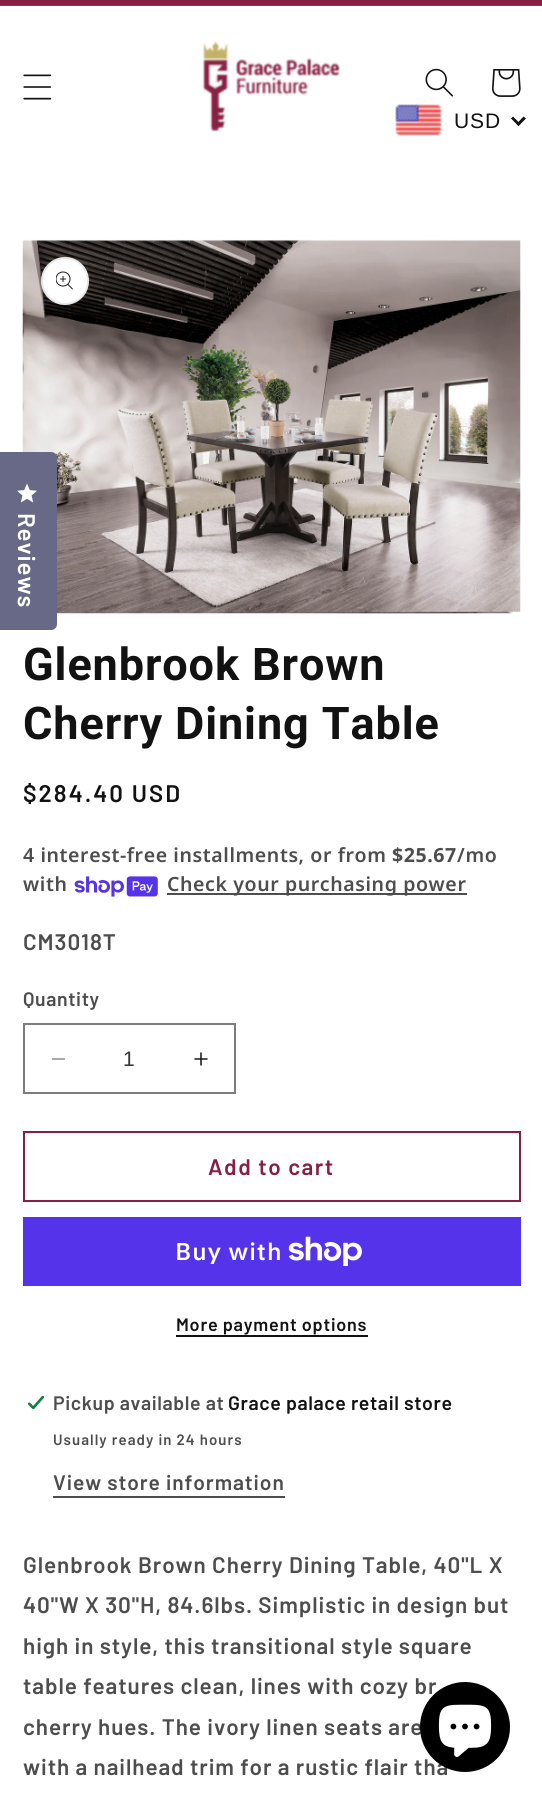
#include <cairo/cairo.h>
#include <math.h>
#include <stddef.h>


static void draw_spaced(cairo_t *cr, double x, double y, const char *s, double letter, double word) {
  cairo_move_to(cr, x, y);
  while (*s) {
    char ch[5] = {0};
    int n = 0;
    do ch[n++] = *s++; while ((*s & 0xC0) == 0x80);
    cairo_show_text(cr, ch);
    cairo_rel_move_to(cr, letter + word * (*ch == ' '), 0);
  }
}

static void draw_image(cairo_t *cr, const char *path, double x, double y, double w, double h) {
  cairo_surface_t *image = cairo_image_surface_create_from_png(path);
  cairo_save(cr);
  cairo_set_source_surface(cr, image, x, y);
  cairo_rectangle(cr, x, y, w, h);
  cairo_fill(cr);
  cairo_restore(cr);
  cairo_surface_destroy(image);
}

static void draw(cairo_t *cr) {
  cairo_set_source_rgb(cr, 1, 1, 1);
  cairo_paint(cr);
  cairo_set_source_rgb(cr, 134 / 255.0, 31 / 255.0, 65 / 255.0);
  cairo_rectangle(cr, 0, 0, 542, 5);
  cairo_fill(cr);
  cairo_set_source_rgb(cr, 144 / 255.0, 49 / 255.0, 80 / 255.0);
  cairo_rectangle(cr, 0, 5, 542, 1);
  cairo_fill(cr);
  draw_image(cr, "images/1.png", 23, 74, 29, 26);
  draw_image(cr, "images/2.png", 202, 41, 138, 91);
  draw_image(cr, "images/3.png", 425, 68, 28, 29);
  draw_image(cr, "images/4.png", 492, 69, 29, 28);
  draw_image(cr, "images/5.png", 395, 104, 47, 32);
  cairo_set_source_rgb(cr, 18 / 255.0, 18 / 255.0, 18 / 255.0);
  cairo_new_path(cr);
  cairo_move_to(cr, 523.5, 116.5);
  cairo_line_to(cr, 526, 118.5);
  cairo_line_to(cr, 518.5, 126);
  cairo_line_to(cr, 516.5, 124);
  cairo_close_path(cr);
  cairo_fill(cr);
  cairo_new_path(cr);
  cairo_move_to(cr, 513, 116.5);
  cairo_line_to(cr, 520.5, 124);
  cairo_line_to(cr, 518.5, 126);
  cairo_line_to(cr, 511, 118.5);
  cairo_close_path(cr);
  cairo_fill(cr);
  draw_image(cr, "images/7.png", 22, 239, 499, 375);
  cairo_set_source_rgb(cr, 103 / 255.0, 105 / 255.0, 134 / 255.0);
  cairo_new_path(cr);
  cairo_move_to(cr, -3, 452);
  cairo_line_to(cr, 51, 452);
  cairo_curve_to(cr, 54.5, 452, 57, 454.5, 57, 458);
  cairo_line_to(cr, 57, 624);
  cairo_curve_to(cr, 57, 627.5, 54.5, 630, 51, 630);
  cairo_line_to(cr, -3, 630);
  cairo_close_path(cr);
  cairo_fill(cr);
  draw_image(cr, "images/6.png", 17, 483, 20, 20);
  cairo_set_source_rgb(cr, 1, 1, 1);
  cairo_arc(cr, 65, 281, 24, 0, 2 * M_PI);
  cairo_fill(cr);
  cairo_arc(cr, 65, 281, 23, 0, 2 * M_PI);
  cairo_set_source_rgba(cr, 18 / 255.0, 18 / 255.0, 18 / 255.0, 0.1);
  cairo_stroke(cr);
  draw_image(cr, "images/8.png", 56, 271, 17, 19);
  draw_image(cr, "images/9.png", 74, 876, 84, 21);
  cairo_set_source_rgb(cr, 77 / 255.0, 77 / 255.0, 77 / 255.0);
  cairo_rectangle(cr, 167, 893, 300, 2);
  cairo_fill(cr);
  draw_image(cr, "images/10.png", 51, 1058, 15, 2);
  draw_image(cr, "images/11.png", 194, 1052, 14, 14);
  cairo_rectangle(cr, 24, 1024, 211, 69);
  cairo_set_source_rgb(cr, 125 / 255.0, 125 / 255.0, 125 / 255.0);
  cairo_stroke(cr);
  cairo_rectangle(cr, 24, 1132, 496, 69);
  cairo_set_source_rgb(cr, 134 / 255.0, 31 / 255.0, 65 / 255.0);
  cairo_stroke(cr);
  cairo_set_source_rgb(cr, 84 / 255.0, 51 / 255.0, 235 / 255.0);
  cairo_rectangle(cr, 23, 1217, 498, 69);
  cairo_fill(cr);
  draw_image(cr, "images/12.png", 288, 1236, 74, 30);
  cairo_set_source_rgb(cr, 18 / 255.0, 18 / 255.0, 18 / 255.0);
  cairo_rectangle(cr, 176, 1335, 192, 2);
  cairo_fill(cr);
  draw_image(cr, "images/13.png", 27, 1395, 18, 15);
  cairo_set_source_rgb(cr, 77 / 255.0, 77 / 255.0, 77 / 255.0);
  cairo_rectangle(cr, 53, 1496, 232, 2);
  cairo_fill(cr);
  cairo_select_font_face(cr, "Liberation Sans", CAIRO_FONT_SLANT_NORMAL, CAIRO_FONT_WEIGHT_NORMAL);
  cairo_set_font_size(cr, 21);
  cairo_set_source_rgb(cr, 18 / 255.0, 18 / 255.0, 18 / 255.0);
  draw_spaced(cr, 454, 128, "USD", 0.9, 0);
  cairo_select_font_face(cr, "Barlow SemiBold", CAIRO_FONT_SLANT_NORMAL, CAIRO_FONT_WEIGHT_NORMAL);
  cairo_set_font_size(cr, 24);
  cairo_set_source_rgb(cr, 1, 1, 1);
  cairo_save(cr);
  cairo_translate(cr, 18, 513);
  cairo_rotate(cr, 90.1 * M_PI / 180);
  draw_spaced(cr, 0, 0, "Reviews", 0.9, 0);
  cairo_restore(cr);
  cairo_select_font_face(cr, "Roboto", CAIRO_FONT_SLANT_NORMAL, CAIRO_FONT_WEIGHT_BOLD);
  cairo_set_font_size(cr, 45);
  cairo_set_source_rgb(cr, 18 / 255.0, 18 / 255.0, 18 / 255.0);
  draw_spaced(cr, 23, 680, "Glenbrook Brown", 0.9, 0);
  draw_spaced(cr, 23, 739, "Cherry Dining Table", 0.9, 0);
  cairo_select_font_face(cr, "Barlow SemiBold", CAIRO_FONT_SLANT_NORMAL, CAIRO_FONT_WEIGHT_NORMAL);
  cairo_set_font_size(cr, 24);
  draw_spaced(cr, 23, 802, "$284.40 USD", 2, 0);
  cairo_select_font_face(cr, "Noto Sans SemiBold", CAIRO_FONT_SLANT_NORMAL, CAIRO_FONT_WEIGHT_NORMAL);
  cairo_set_font_size(cr, 19.5);
  cairo_set_source_rgb(cr, 77 / 255.0, 77 / 255.0, 77 / 255.0);
  draw_spaced(cr, 23, 862, "4 interest-free installments, or from", 0.6, 0);
  cairo_select_font_face(cr, "Noto Sans", CAIRO_FONT_SLANT_NORMAL, CAIRO_FONT_WEIGHT_BOLD);
  draw_spaced(cr, 392, 862, "$25.67", 0.6, 0);
  cairo_select_font_face(cr, "Noto Sans SemiBold", CAIRO_FONT_SLANT_NORMAL, CAIRO_FONT_WEIGHT_NORMAL);
  draw_spaced(cr, 457, 862, "/mo", 0.6, 0);
  draw_spaced(cr, 23, 891, "with", 0.6, 0);
  draw_spaced(cr, 167, 891, "Check your purchasing power", 0.6, 0);
  cairo_select_font_face(cr, "Barlow SemiBold", CAIRO_FONT_SLANT_NORMAL, CAIRO_FONT_WEIGHT_NORMAL);
  cairo_set_font_size(cr, 22.5);
  draw_spaced(cr, 23, 950, "CM3018T", 0.9, 0);
  cairo_set_font_size(cr, 19.5);
  draw_spaced(cr, 23, 1006, "Quantity", 0.6, 0);
  cairo_select_font_face(cr, "Liberation Sans", CAIRO_FONT_SLANT_NORMAL, CAIRO_FONT_WEIGHT_NORMAL);
  cairo_set_font_size(cr, 21);
  cairo_set_source_rgb(cr, 54 / 255.0, 54 / 255.0, 54 / 255.0);
  cairo_move_to(cr, 123, 1066);
  cairo_show_text(cr, "1");
  cairo_select_font_face(cr, "Barlow SemiBold", CAIRO_FONT_SLANT_NORMAL, CAIRO_FONT_WEIGHT_NORMAL);
  cairo_set_font_size(cr, 22.5);
  cairo_set_source_rgb(cr, 134 / 255.0, 31 / 255.0, 65 / 255.0);
  draw_spaced(cr, 208, 1175, "Add to cart", 1.5, 0);
  cairo_select_font_face(cr, "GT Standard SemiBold", CAIRO_FONT_SLANT_NORMAL, CAIRO_FONT_WEIGHT_NORMAL);
  cairo_set_font_size(cr, 24);
  cairo_set_source_rgb(cr, 1, 1, 1);
  draw_spaced(cr, 175, 1260, "Buy with", 0.9, 0);
  cairo_select_font_face(cr, "Barlow SemiBold", CAIRO_FONT_SLANT_NORMAL, CAIRO_FONT_WEIGHT_NORMAL);
  cairo_set_font_size(cr, 18);
  cairo_set_source_rgb(cr, 18 / 255.0, 18 / 255.0, 18 / 255.0);
  draw_spaced(cr, 176, 1331, "More payment options", 0.75, 0);
  cairo_set_font_size(cr, 19.5);
  cairo_set_source_rgb(cr, 77 / 255.0, 77 / 255.0, 77 / 255.0);
  draw_spaced(cr, 53, 1410, "Pickup available at", 0.6, 0);
  cairo_set_source_rgb(cr, 18 / 255.0, 18 / 255.0, 18 / 255.0);
  draw_spaced(cr, 228, 1410, "Grace palace retail store", 0.6, 0);
  cairo_set_font_size(cr, 15);
  cairo_set_source_rgb(cr, 77 / 255.0, 77 / 255.0, 77 / 255.0);
  draw_spaced(cr, 53, 1445, "Usually ready in 24 hours", 1.05, 0);
  cairo_set_font_size(cr, 21);
  draw_spaced(cr, 53, 1490, "View store information", 0.9, 0);
  cairo_set_font_size(cr, 22.5);
  draw_spaced(cr, 23, 1573, "Glenbrook Brown Cherry Dining Table, 40\"L X", 0.9, 0);
  draw_spaced(cr, 23, 1613, "40\"W X 30\"H, 84.6lbs. Simplistic in design but", 0.9, 0);
  draw_spaced(cr, 23, 1654, "high in style, this transitional style square", 0.9, 0);
  draw_spaced(cr, 23, 1694, "table features clean, lines with cozy br", 0.9, 0);
  draw_spaced(cr, 23, 1735, "cherry hues. The ivory linen seats are", 0.9, 0);
  draw_spaced(cr, 23, 1775, "with a nailhead trim for a rustic flair tha", 0.9, 0);
  cairo_set_source_rgb(cr, 0, 0, 0);
  cairo_new_path(cr);
  cairo_arc(cr, 465, 1727, 45, 0, 2 * M_PI);
  cairo_fill(cr);
  draw_image(cr, "images/14.png", 438, 1704, 54, 53);
}

int main(void) {
  cairo_surface_t *surface = cairo_image_surface_create(CAIRO_FORMAT_RGB24, 542, 1803);
  cairo_t *cr = cairo_create(surface);
  cairo_font_options_t *options = cairo_font_options_create();
  cairo_font_options_set_hint_metrics(options, CAIRO_HINT_METRICS_OFF);
  cairo_font_options_set_hint_style(options, CAIRO_HINT_STYLE_NONE);
  cairo_set_font_options(cr, options);
  cairo_set_miter_limit(cr, 4);
  draw(cr);
  cairo_surface_write_to_png(surface, "out.png");
  cairo_font_options_destroy(options);
  cairo_destroy(cr);
  cairo_surface_destroy(surface);
  return 0;
}
